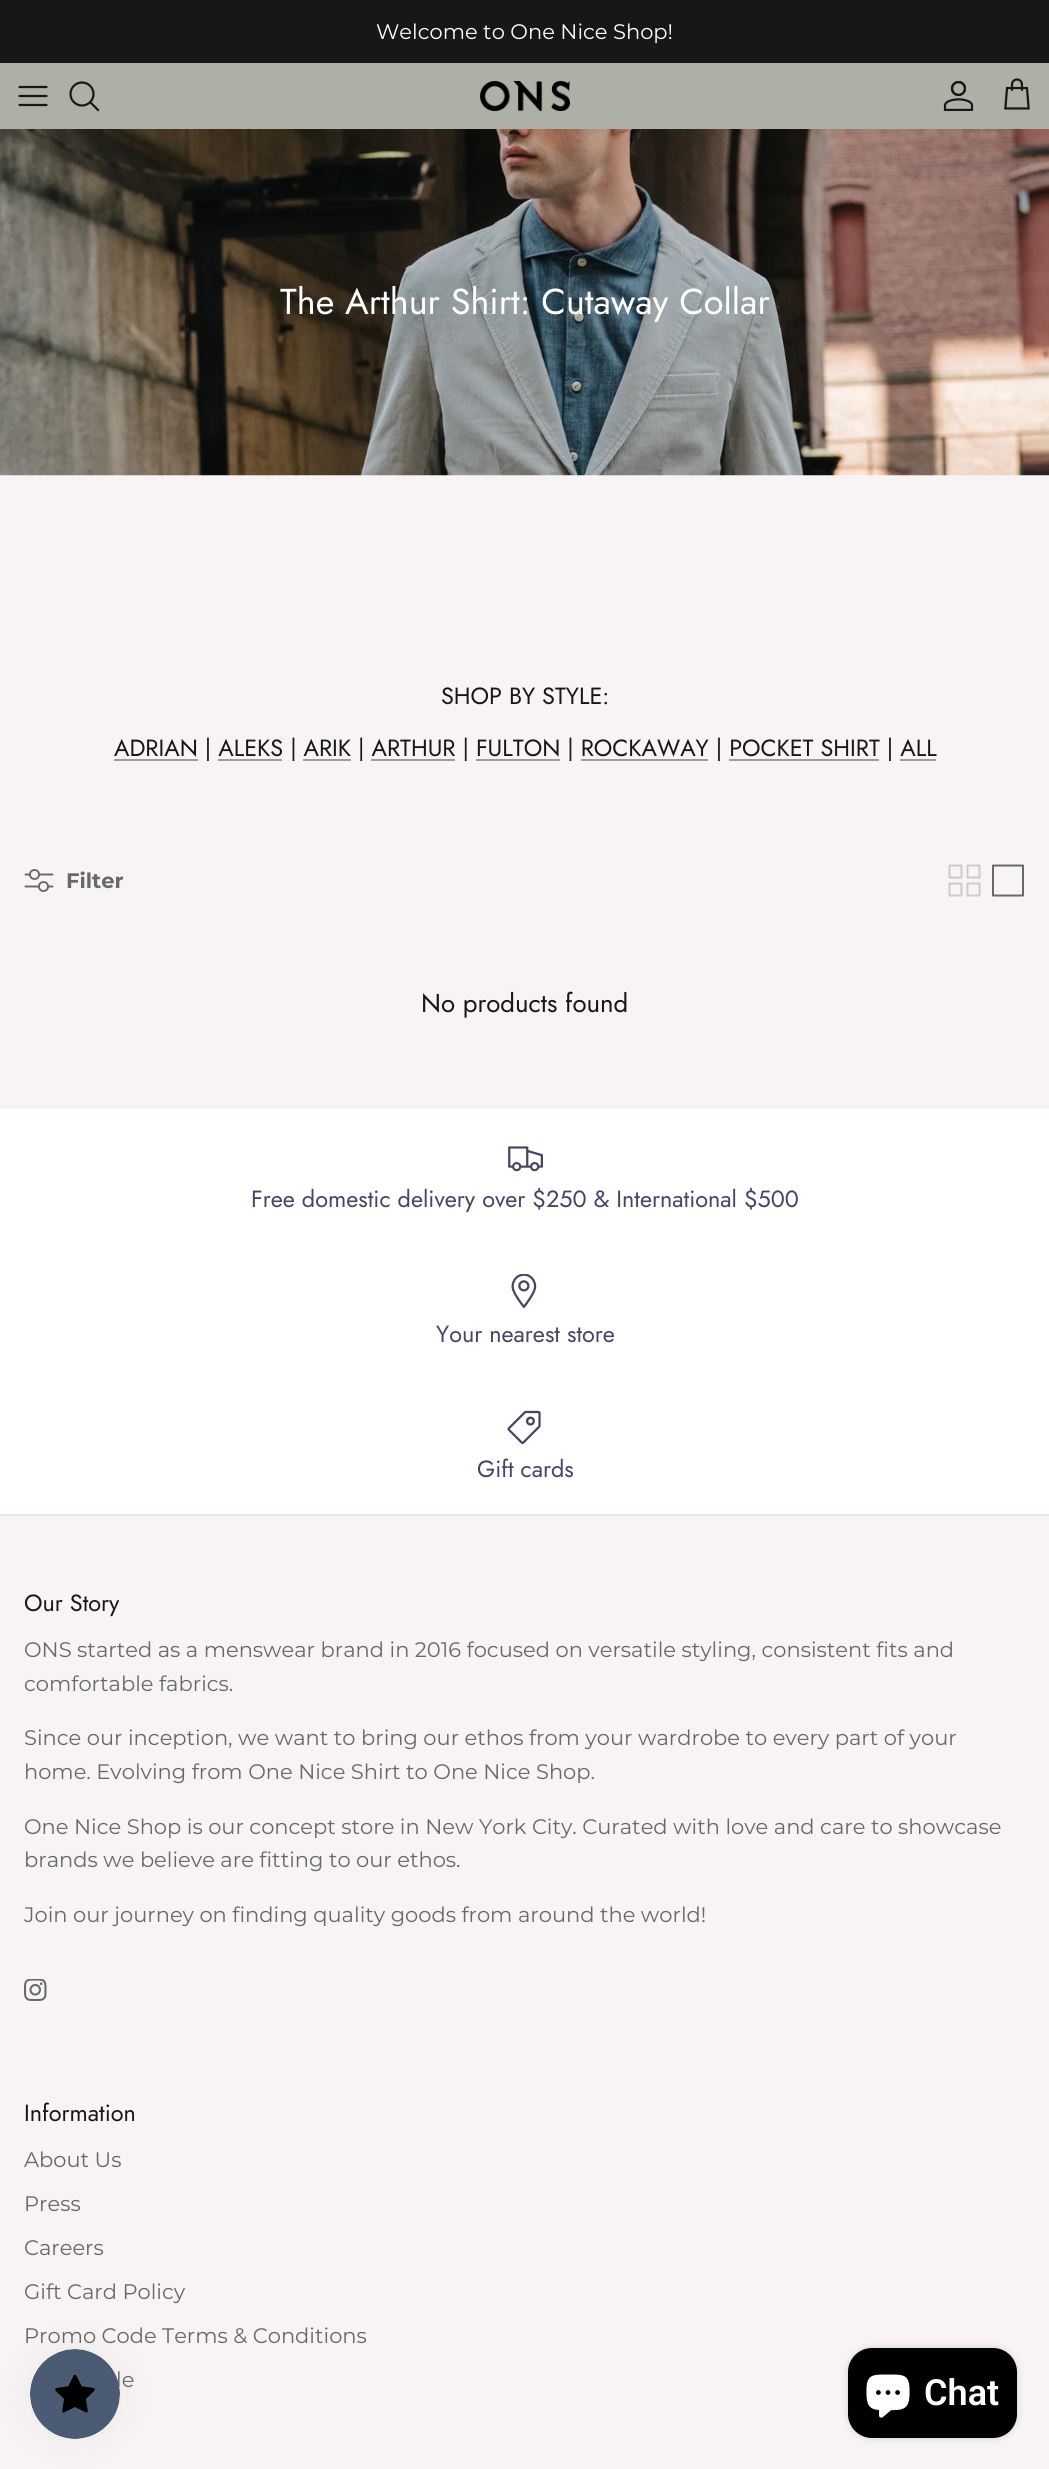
#include <cairo/cairo.h>
#include <math.h>
#include <stddef.h>


static void rounded_rect(cairo_t *cr, double x, double y, double w, double h, double r) {
  cairo_new_sub_path(cr);
  cairo_arc(cr, x + w - r, y + h - r, r, 0, M_PI / 2);
  cairo_arc(cr, x + r, y + h - r, r, M_PI / 2, M_PI);
  cairo_arc(cr, x + r, y + r, r, M_PI, 1.5 * M_PI);
  cairo_arc(cr, x + w - r, y + r, r, 1.5 * M_PI, 2 * M_PI);
  cairo_close_path(cr);
}

static void draw_shadow(cairo_t *cr, double x, double y, double w, double h, double r, double blur, double alpha) {
  cairo_push_group_with_content(cr, CAIRO_CONTENT_ALPHA);
  cairo_set_operator(cr, CAIRO_OPERATOR_SOURCE);
  for (int i = 15; i >= -15 && fmin(w, h) + blur * i / 3 > 0; i -= 2) {
    double e = blur * i / 6;
    cairo_set_source_rgba(cr, 0, 0, 0, alpha * erfc((i - 1) / 8.5) / 2);
    rounded_rect(cr, x - e, y - e, w + 2 * e, h + 2 * e, fmax(0, fmin(r + e + blur * .6, fmin(w, h) / 2 + e)));
    cairo_fill(cr);
  }
  cairo_pattern_t *soft = cairo_pop_group(cr);
  cairo_mask(cr, soft);
  cairo_pattern_destroy(soft);
}

static void draw_image(cairo_t *cr, const char *path, double x, double y, double w, double h) {
  cairo_surface_t *image = cairo_image_surface_create_from_png(path);
  cairo_save(cr);
  cairo_set_source_surface(cr, image, x, y);
  cairo_rectangle(cr, x, y, w, h);
  cairo_fill(cr);
  cairo_restore(cr);
  cairo_surface_destroy(image);
}

static void draw(cairo_t *cr) {
  cairo_set_source_rgb(cr, 248 / 255.0, 244 / 255.0, 243 / 255.0);
  cairo_paint(cr);
  cairo_set_source_rgb(cr, 23 / 255.0, 23 / 255.0, 23 / 255.0);
  cairo_rectangle(cr, 0, 0, 1049, 63);
  cairo_fill(cr);
  cairo_set_source_rgb(cr, 175 / 255.0, 176 / 255.0, 165 / 255.0);
  cairo_rectangle(cr, 0, 63, 1049, 66);
  cairo_fill(cr);
  cairo_new_path(cr);
  cairo_move_to(cr, 19.5, 96);
  cairo_line_to(cr, 46.5, 96);
  cairo_move_to(cr, 19.5, 87);
  cairo_line_to(cr, 46.5, 87);
  cairo_move_to(cr, 19.5, 105);
  cairo_line_to(cr, 46.5, 105);
  cairo_set_source_rgb(cr, 23 / 255.0, 23 / 255.0, 23 / 255.0);
  cairo_set_line_width(cr, 2.2);
  cairo_set_line_cap(cr, CAIRO_LINE_CAP_ROUND);
  cairo_set_line_join(cr, CAIRO_LINE_JOIN_ROUND);
  cairo_stroke(cr);
  cairo_arc(cr, 82, 94, 11.5, 0, 2 * M_PI);
  cairo_set_line_cap(cr, CAIRO_LINE_CAP_BUTT);
  cairo_set_line_join(cr, CAIRO_LINE_JOIN_MITER);
  cairo_stroke(cr);
  cairo_new_path(cr);
  cairo_move_to(cr, 91.5, 103.5);
  cairo_line_to(cr, 98, 110);
  cairo_set_line_cap(cr, CAIRO_LINE_CAP_SQUARE);
  cairo_stroke(cr);
  draw_image(cr, "images/1.png", 480, 81, 90, 30);
  draw_image(cr, "images/2.png", 943, 80, 31, 31);
  draw_image(cr, "images/3.png", 1004, 78, 26, 32);
  draw_image(cr, "images/4.png", 0, 129, 1049, 347);
  cairo_set_source_rgb(cr, 158 / 255.0, 156 / 255.0, 155 / 255.0);
  cairo_rectangle(cr, 114, 759, 84, 2);
  cairo_fill(cr);
  cairo_new_path(cr);
  cairo_move_to(cr, 25.5, 874.5);
  cairo_line_to(cr, 52.5, 874.5);
  cairo_move_to(cr, 25.5, 886.5);
  cairo_line_to(cr, 52.5, 886.5);
  cairo_set_source_rgb(cr, 103 / 255.0, 104 / 255.0, 105 / 255.0);
  cairo_set_line_width(cr, 1.9);
  cairo_set_line_cap(cr, CAIRO_LINE_CAP_ROUND);
  cairo_set_line_join(cr, CAIRO_LINE_JOIN_ROUND);
  cairo_stroke(cr);
  cairo_set_source_rgb(cr, 248 / 255.0, 244 / 255.0, 243 / 255.0);
  cairo_arc(cr, 34.5, 874.5, 4.5, 0, 2 * M_PI);
  cairo_fill_preserve(cr);
  cairo_set_source_rgb(cr, 103 / 255.0, 104 / 255.0, 105 / 255.0);
  cairo_set_line_cap(cr, CAIRO_LINE_CAP_BUTT);
  cairo_set_line_join(cr, CAIRO_LINE_JOIN_MITER);
  cairo_stroke(cr);
  cairo_set_source_rgb(cr, 248 / 255.0, 244 / 255.0, 243 / 255.0);
  cairo_arc(cr, 43.5, 886.5, 4.5, 0, 2 * M_PI);
  cairo_fill_preserve(cr);
  cairo_set_source_rgb(cr, 103 / 255.0, 104 / 255.0, 105 / 255.0);
  cairo_stroke(cr);
  draw_image(cr, "images/5.png", 948, 864, 33, 33);
  cairo_new_path(cr);
  cairo_move_to(cr, 993, 865.5);
  cairo_line_to(cr, 1023, 865.5);
  cairo_line_to(cr, 1023, 895.5);
  cairo_line_to(cr, 993, 895.5);
  cairo_line_to(cr, 993, 865.5);
  cairo_set_line_width(cr, 2);
  cairo_set_line_cap(cr, CAIRO_LINE_CAP_ROUND);
  cairo_set_line_join(cr, CAIRO_LINE_JOIN_ROUND);
  cairo_stroke(cr);
  cairo_set_source_rgb(cr, 1, 1, 1);
  cairo_rectangle(cr, 0, 1109, 1049, 405);
  cairo_fill(cr);
  draw_image(cr, "images/6.png", 508, 1146, 35, 26);
  draw_image(cr, "images/7.png", 511, 1274, 26, 35);
  draw_image(cr, "images/8.png", 507, 1410, 34, 34);
  cairo_set_source_rgb(cr, 228 / 255.0, 228 / 255.0, 228 / 255.0);
  cairo_rectangle(cr, 0, 1514, 1049, 2);
  cairo_fill(cr);
  draw_image(cr, "images/9.png", 24, 1979, 23, 22);
  cairo_set_source_rgb(cr, 0, 0, 0);
  draw_shadow(cr, 30, 2349, 90, 90, 45, 19, 0.05);
  draw_shadow(cr, 848, 2348, 169, 90, 24, 4, 0.15);
  cairo_set_source_rgb(cr, 0, 0, 0);
  rounded_rect(cr, 848, 2348, 169, 90, 24);
  cairo_fill(cr);
  draw_image(cr, "images/11.png", 866, 2374, 44, 44);
  cairo_select_font_face(cr, "Montserrat", CAIRO_FONT_SLANT_NORMAL, CAIRO_FONT_WEIGHT_NORMAL);
  cairo_set_font_size(cr, 21);
  cairo_set_source_rgb(cr, 1, 1, 1);
  cairo_move_to(cr, 376, 39);
  cairo_show_text(cr, "Welcome to One Nice Shop!");
  cairo_select_font_face(cr, "Jost", CAIRO_FONT_SLANT_NORMAL, CAIRO_FONT_WEIGHT_NORMAL);
  cairo_set_font_size(cr, 36);
  cairo_move_to(cr, 280, 314);
  cairo_show_text(cr, "The Arthur Shirt: Cutaway Collar");
  cairo_set_font_size(cr, 23.4);
  cairo_set_source_rgb(cr, 23 / 255.0, 23 / 255.0, 23 / 255.0);
  cairo_move_to(cr, 441, 704);
  cairo_show_text(cr, "SHOP BY STYLE:");
  cairo_move_to(cr, 114, 756);
  cairo_show_text(cr, "ADRIAN | ALEKS | ARIK | ARTHUR | FULTON | ROCKAWAY | POCKET SHIRT | ALL");
  cairo_set_source_rgb(cr, 158 / 255.0, 156 / 255.0, 155 / 255.0);
  cairo_rectangle(cr, 218, 759, 64, 2);
  cairo_fill(cr);
  cairo_rectangle(cr, 303, 759, 48, 2);
  cairo_fill(cr);
  cairo_rectangle(cr, 371, 759, 84, 2);
  cairo_fill(cr);
  cairo_rectangle(cr, 476, 759, 84, 2);
  cairo_fill(cr);
  cairo_rectangle(cr, 581, 759, 127, 2);
  cairo_fill(cr);
  cairo_rectangle(cr, 729, 759, 150, 2);
  cairo_fill(cr);
  cairo_rectangle(cr, 900, 759, 36, 2);
  cairo_fill(cr);
  cairo_select_font_face(cr, "Montserrat", CAIRO_FONT_SLANT_NORMAL, CAIRO_FONT_WEIGHT_BOLD);
  cairo_set_font_size(cr, 21);
  cairo_set_source_rgb(cr, 103 / 255.0, 104 / 255.0, 105 / 255.0);
  cairo_move_to(cr, 66, 888);
  cairo_show_text(cr, "Filter");
  cairo_select_font_face(cr, "Jost", CAIRO_FONT_SLANT_NORMAL, CAIRO_FONT_WEIGHT_NORMAL);
  cairo_set_font_size(cr, 25.75);
  cairo_set_source_rgb(cr, 23 / 255.0, 23 / 255.0, 23 / 255.0);
  cairo_move_to(cr, 421, 1012);
  cairo_show_text(cr, "No products found");
  cairo_set_font_size(cr, 23.4);
  cairo_set_source_rgb(cr, 69 / 255.0, 69 / 255.0, 100 / 255.0);
  cairo_move_to(cr, 251, 1207);
  cairo_show_text(cr, "Free domestic delivery over $250 & International $500");
  cairo_move_to(cr, 436, 1342);
  cairo_show_text(cr, "Your nearest store");
  cairo_move_to(cr, 477, 1477);
  cairo_show_text(cr, "Gift cards");
  cairo_set_source_rgb(cr, 23 / 255.0, 23 / 255.0, 23 / 255.0);
  cairo_move_to(cr, 24, 1611);
  cairo_show_text(cr, "Our Story");
  cairo_select_font_face(cr, "Montserrat", CAIRO_FONT_SLANT_NORMAL, CAIRO_FONT_WEIGHT_NORMAL);
  cairo_set_font_size(cr, 21);
  cairo_set_source_rgb(cr, 103 / 255.0, 104 / 255.0, 105 / 255.0);
  cairo_move_to(cr, 24, 1657);
  cairo_show_text(cr, "ONS started as a menswear brand in 2016 focused on versatile styling, consistent fits and");
  cairo_move_to(cr, 24, 1691);
  cairo_show_text(cr, "comfortable fabrics.");
  cairo_move_to(cr, 24, 1745);
  cairo_show_text(cr, "Since our inception, we want to bring our ethos from your wardrobe to every part of your");
  cairo_move_to(cr, 24, 1779);
  cairo_show_text(cr, "home. Evolving from One Nice Shirt to One Nice Shop.");
  cairo_move_to(cr, 24, 1834);
  cairo_show_text(cr, "One Nice Shop is our concept store in New York City. Curated with love and care to showcase");
  cairo_move_to(cr, 24, 1867);
  cairo_show_text(cr, "brands we believe are fitting to our ethos.");
  cairo_move_to(cr, 24, 1922);
  cairo_show_text(cr, "Join our journey on finding quality goods from around the world!");
  cairo_select_font_face(cr, "Jost", CAIRO_FONT_SLANT_NORMAL, CAIRO_FONT_WEIGHT_NORMAL);
  cairo_set_font_size(cr, 23.4);
  cairo_set_source_rgb(cr, 23 / 255.0, 23 / 255.0, 23 / 255.0);
  cairo_move_to(cr, 24, 2121);
  cairo_show_text(cr, "Information");
  cairo_select_font_face(cr, "Montserrat", CAIRO_FONT_SLANT_NORMAL, CAIRO_FONT_WEIGHT_NORMAL);
  cairo_set_font_size(cr, 21);
  cairo_set_source_rgb(cr, 103 / 255.0, 104 / 255.0, 105 / 255.0);
  cairo_move_to(cr, 24, 2167);
  cairo_show_text(cr, "About Us");
  cairo_move_to(cr, 24, 2211);
  cairo_show_text(cr, "Press");
  cairo_move_to(cr, 24, 2255);
  cairo_show_text(cr, "Careers");
  cairo_move_to(cr, 24, 2299);
  cairo_show_text(cr, "Gift Card Policy");
  cairo_move_to(cr, 24, 2343);
  cairo_show_text(cr, "Promo Code Terms & Conditions");
  cairo_move_to(cr, 116, 2387);
  cairo_show_text(cr, "le");
  draw_image(cr, "images/10.png", 30, 2349, 90, 90);
  cairo_select_font_face(cr, "Roboto SemiBold", CAIRO_FONT_SLANT_NORMAL, CAIRO_FONT_WEIGHT_NORMAL);
  cairo_set_font_size(cr, 36);
  cairo_set_source_rgb(cr, 1, 1, 1);
  cairo_move_to(cr, 924, 2405);
  cairo_show_text(cr, "Chat");
}

int main(void) {
  cairo_surface_t *surface = cairo_image_surface_create(CAIRO_FORMAT_RGB24, 1049, 2469);
  cairo_t *cr = cairo_create(surface);
  cairo_font_options_t *options = cairo_font_options_create();
  cairo_font_options_set_hint_metrics(options, CAIRO_HINT_METRICS_OFF);
  cairo_font_options_set_hint_style(options, CAIRO_HINT_STYLE_NONE);
  cairo_set_font_options(cr, options);
  cairo_set_miter_limit(cr, 4);
  draw(cr);
  cairo_surface_write_to_png(surface, "out.png");
  cairo_font_options_destroy(options);
  cairo_destroy(cr);
  cairo_surface_destroy(surface);
  return 0;
}
